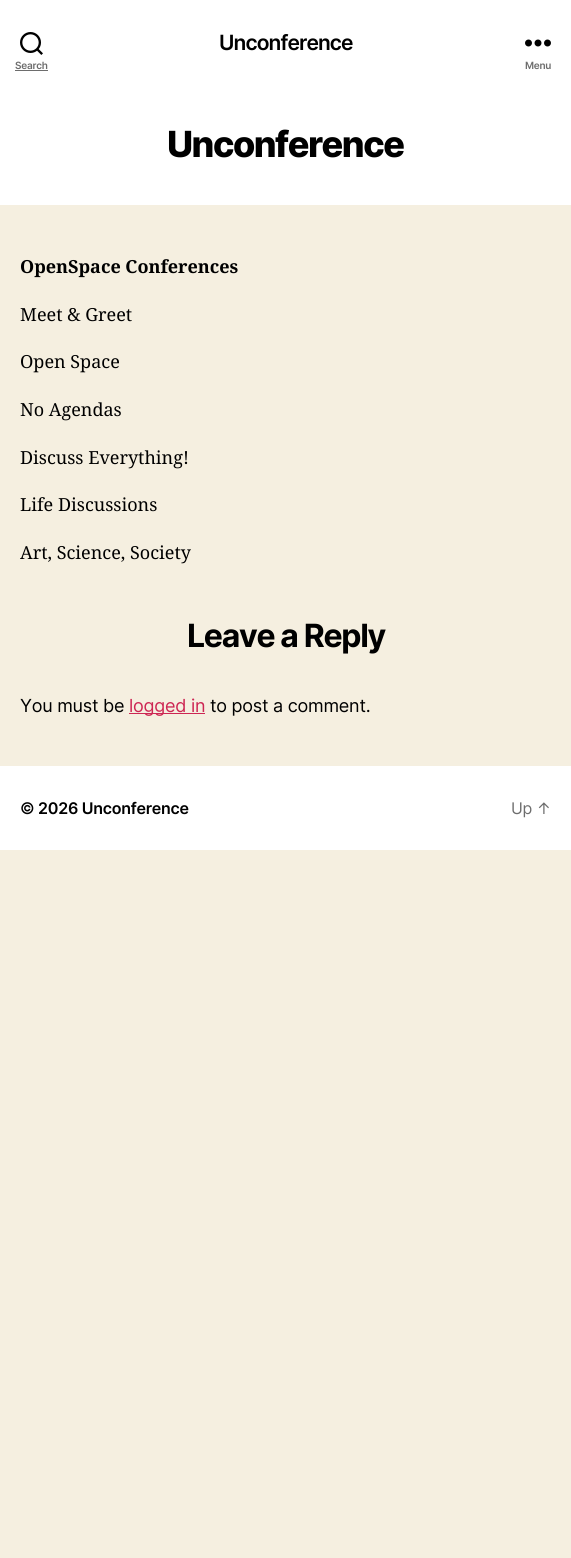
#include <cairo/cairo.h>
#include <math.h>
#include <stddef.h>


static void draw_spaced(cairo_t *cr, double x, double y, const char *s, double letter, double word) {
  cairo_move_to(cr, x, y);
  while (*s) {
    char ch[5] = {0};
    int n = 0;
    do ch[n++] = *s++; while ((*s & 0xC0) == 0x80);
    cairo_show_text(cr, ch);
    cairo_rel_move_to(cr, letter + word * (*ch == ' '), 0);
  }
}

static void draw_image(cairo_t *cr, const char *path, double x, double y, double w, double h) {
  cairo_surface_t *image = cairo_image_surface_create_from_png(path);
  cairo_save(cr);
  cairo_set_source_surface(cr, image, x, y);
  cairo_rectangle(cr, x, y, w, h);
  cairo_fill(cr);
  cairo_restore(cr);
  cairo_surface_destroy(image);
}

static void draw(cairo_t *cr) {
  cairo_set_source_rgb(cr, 245 / 255.0, 239 / 255.0, 224 / 255.0);
  cairo_paint(cr);
  cairo_set_source_rgb(cr, 1, 1, 1);
  cairo_rectangle(cr, 0, 0, 571, 205);
  cairo_fill(cr);
  draw_image(cr, "images/1.png", 20, 32, 23, 23);
  cairo_set_source_rgb(cr, 109 / 255.0, 109 / 255.0, 109 / 255.0);
  cairo_rectangle(cr, 15, 70, 33, 1);
  cairo_fill(cr);
  draw_image(cr, "images/2.png", 525, 39, 26, 8);
  cairo_set_source_rgb(cr, 205 / 255.0, 38 / 255.0, 83 / 255.0);
  cairo_rectangle(cr, 129, 713, 76, 1);
  cairo_fill(cr);
  cairo_set_source_rgb(cr, 1, 1, 1);
  cairo_rectangle(cr, 0, 766, 571, 84);
  cairo_fill(cr);
  cairo_select_font_face(cr, "Inter SemiBold", CAIRO_FONT_SLANT_NORMAL, CAIRO_FONT_WEIGHT_NORMAL);
  cairo_set_font_size(cr, 21);
  cairo_set_source_rgb(cr, 0, 0, 0);
  draw_spaced(cr, 219, 50, "Unconference", -0.9, 0);
  cairo_set_font_size(cr, 10);
  cairo_set_source_rgb(cr, 109 / 255.0, 109 / 255.0, 109 / 255.0);
  draw_spaced(cr, 15, 69, "Search", -0.25, 0);
  draw_spaced(cr, 525, 69, "Menu", -0.25, 0);
  cairo_select_font_face(cr, "Inter ExtraBold", CAIRO_FONT_SLANT_NORMAL, CAIRO_FONT_WEIGHT_NORMAL);
  cairo_set_font_size(cr, 36);
  cairo_set_source_rgb(cr, 0, 0, 0);
  draw_spaced(cr, 167, 157, "Unconference", -1.5, 0);
  cairo_select_font_face(cr, "Noto Serif", CAIRO_FONT_SLANT_NORMAL, CAIRO_FONT_WEIGHT_BOLD);
  cairo_set_font_size(cr, 18);
  cairo_move_to(cr, 20, 273);
  cairo_show_text(cr, "OpenSpace Conferences");
  cairo_select_font_face(cr, "Noto Serif", CAIRO_FONT_SLANT_NORMAL, CAIRO_FONT_WEIGHT_NORMAL);
  cairo_move_to(cr, 20, 321);
  cairo_show_text(cr, "Meet & Greet");
  cairo_move_to(cr, 20, 368);
  cairo_show_text(cr, "Open Space");
  cairo_move_to(cr, 20, 416);
  cairo_show_text(cr, "No Agendas");
  cairo_move_to(cr, 20, 464);
  cairo_show_text(cr, "Discuss Everything!");
  cairo_move_to(cr, 20, 511);
  cairo_show_text(cr, "Life Discussions");
  cairo_move_to(cr, 20, 559);
  cairo_show_text(cr, "Art, Science, Society");
  cairo_select_font_face(cr, "Inter", CAIRO_FONT_SLANT_NORMAL, CAIRO_FONT_WEIGHT_BOLD);
  cairo_set_font_size(cr, 32);
  draw_spaced(cr, 187, 647, "Leave a Reply", -1.3, 0);
  cairo_select_font_face(cr, "Inter", CAIRO_FONT_SLANT_NORMAL, CAIRO_FONT_WEIGHT_NORMAL);
  cairo_set_font_size(cr, 18);
  draw_spaced(cr, 20, 712, "You must be", -0.25, 0);
  cairo_set_source_rgb(cr, 205 / 255.0, 38 / 255.0, 83 / 255.0);
  draw_spaced(cr, 129, 712, "logged in", -0.25, 0);
  cairo_set_source_rgb(cr, 0, 0, 0);
  draw_spaced(cr, 210, 712, "to post a comment.", -0.25, 0);
  cairo_select_font_face(cr, "Inter SemiBold", CAIRO_FONT_SLANT_NORMAL, CAIRO_FONT_WEIGHT_NORMAL);
  cairo_set_font_size(cr, 16);
  draw_spaced(cr, 20, 814, "© 2026 Unconference", -0.25, 0);
  cairo_select_font_face(cr, "Inter", CAIRO_FONT_SLANT_NORMAL, CAIRO_FONT_WEIGHT_NORMAL);
  cairo_set_source_rgb(cr, 109 / 255.0, 109 / 255.0, 109 / 255.0);
  draw_spaced(cr, 511, 814, "Up ↑", -0.25, 0);
}

int main(void) {
  cairo_surface_t *surface = cairo_image_surface_create(CAIRO_FORMAT_RGB24, 571, 1558);
  cairo_t *cr = cairo_create(surface);
  cairo_font_options_t *options = cairo_font_options_create();
  cairo_font_options_set_hint_metrics(options, CAIRO_HINT_METRICS_OFF);
  cairo_font_options_set_hint_style(options, CAIRO_HINT_STYLE_NONE);
  cairo_set_font_options(cr, options);
  cairo_set_miter_limit(cr, 4);
  draw(cr);
  cairo_surface_write_to_png(surface, "out.png");
  cairo_font_options_destroy(options);
  cairo_destroy(cr);
  cairo_surface_destroy(surface);
  return 0;
}
